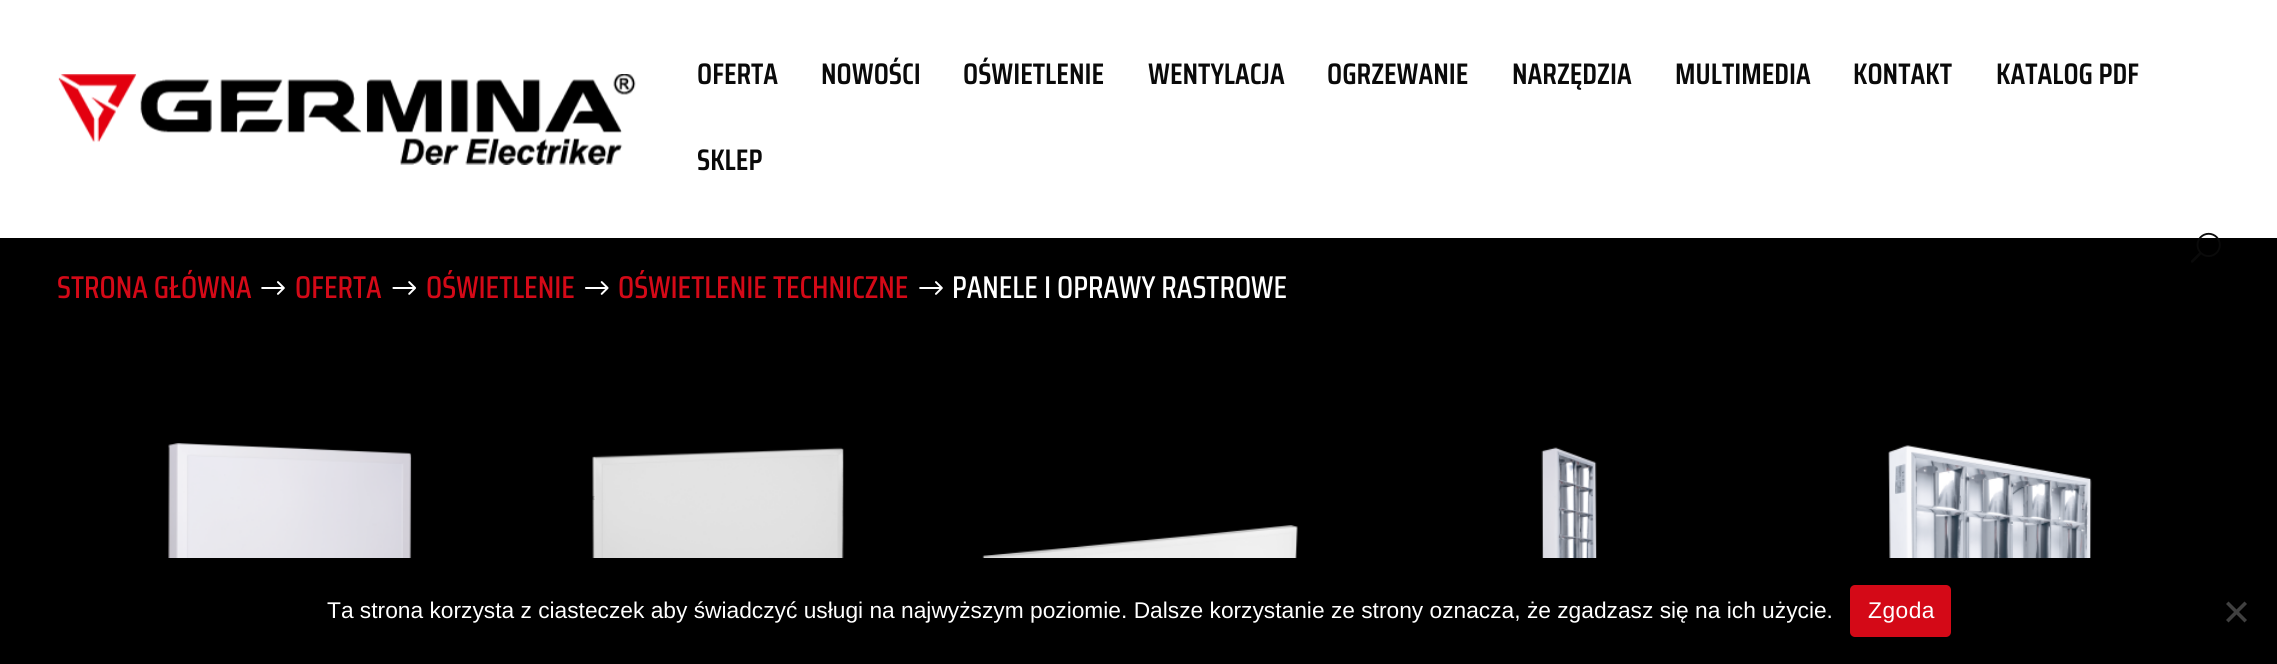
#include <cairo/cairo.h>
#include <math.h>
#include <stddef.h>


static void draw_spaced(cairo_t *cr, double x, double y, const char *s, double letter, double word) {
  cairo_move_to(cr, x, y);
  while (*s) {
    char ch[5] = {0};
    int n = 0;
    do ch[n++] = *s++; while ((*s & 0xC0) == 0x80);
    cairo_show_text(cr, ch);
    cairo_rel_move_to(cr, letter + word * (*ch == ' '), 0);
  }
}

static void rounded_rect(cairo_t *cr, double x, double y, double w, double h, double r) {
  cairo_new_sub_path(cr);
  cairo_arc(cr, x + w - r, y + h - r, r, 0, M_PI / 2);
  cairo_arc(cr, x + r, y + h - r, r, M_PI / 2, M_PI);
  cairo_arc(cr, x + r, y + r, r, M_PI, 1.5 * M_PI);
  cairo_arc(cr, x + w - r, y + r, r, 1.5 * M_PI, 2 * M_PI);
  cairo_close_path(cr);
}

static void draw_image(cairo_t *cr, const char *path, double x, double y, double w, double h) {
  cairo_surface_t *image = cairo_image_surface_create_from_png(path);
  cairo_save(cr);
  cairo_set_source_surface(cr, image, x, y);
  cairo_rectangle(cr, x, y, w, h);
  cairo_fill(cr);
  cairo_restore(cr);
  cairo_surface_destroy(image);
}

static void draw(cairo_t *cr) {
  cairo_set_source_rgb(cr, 1, 1, 1);
  cairo_paint(cr);
  draw_image(cr, "images/1.png", 58, 74, 578, 91);
  cairo_set_source_rgb(cr, 0, 0, 0);
  cairo_rectangle(cr, 0, 238, 2277, 426);
  cairo_fill(cr);
  draw_image(cr, "images/2.png", 2191, 232, 30, 31);
  draw_image(cr, "images/3.png", 168, 443, 244, 115);
  draw_image(cr, "images/4.png", 592, 447, 252, 111);
  draw_image(cr, "images/5.png", 982, 525, 316, 33);
  draw_image(cr, "images/6.png", 1541, 447, 56, 111);
  draw_image(cr, "images/7.png", 1888, 445, 204, 113);
  draw_image(cr, "images/8.png", 261, 281, 24, 14);
  draw_image(cr, "images/9.png", 392, 281, 24, 14);
  draw_image(cr, "images/10.png", 585, 281, 24, 14);
  draw_image(cr, "images/8.png", 919, 281, 24, 14);
  cairo_set_source_rgb(cr, 212 / 255.0, 9 / 255.0, 23 / 255.0);
  rounded_rect(cr, 1850, 585, 101, 52, 5);
  cairo_fill(cr);
  cairo_set_source_rgb(cr, 64 / 255.0, 64 / 255.0, 64 / 255.0);
  cairo_new_path(cr);
  cairo_move_to(cr, 2244.5, 601.5);
  cairo_line_to(cr, 2247, 604);
  cairo_line_to(cr, 2228.5, 622.5);
  cairo_line_to(cr, 2226, 620);
  cairo_close_path(cr);
  cairo_fill(cr);
  cairo_new_path(cr);
  cairo_move_to(cr, 2226, 604);
  cairo_line_to(cr, 2228.5, 601.5);
  cairo_line_to(cr, 2247, 620);
  cairo_line_to(cr, 2244.5, 622.5);
  cairo_close_path(cr);
  cairo_fill(cr);
  cairo_select_font_face(cr, "Saira Condensed SemiBold", CAIRO_FONT_SLANT_NORMAL, CAIRO_FONT_WEIGHT_NORMAL);
  cairo_set_font_size(cr, 29.75);
  cairo_set_source_rgb(cr, 10 / 255.0, 10 / 255.0, 10 / 255.0);
  cairo_move_to(cr, 697, 84);
  cairo_show_text(cr, "OFERTA");
  cairo_move_to(cr, 821, 84);
  cairo_show_text(cr, "NOWOŚCI");
  cairo_move_to(cr, 963, 84);
  cairo_show_text(cr, "OŚWIETLENIE");
  cairo_move_to(cr, 1148, 84);
  cairo_show_text(cr, "WENTYLACJA");
  cairo_move_to(cr, 1327, 84);
  cairo_show_text(cr, "OGRZEWANIE");
  cairo_move_to(cr, 1512, 84);
  cairo_show_text(cr, "NARZĘDZIA");
  cairo_move_to(cr, 1675, 84);
  cairo_show_text(cr, "MULTIMEDIA");
  cairo_move_to(cr, 1853, 84);
  cairo_show_text(cr, "KONTAKT");
  cairo_move_to(cr, 1996, 84);
  cairo_show_text(cr, "KATALOG PDF");
  cairo_move_to(cr, 697, 170);
  cairo_show_text(cr, "SKLEP");
  cairo_select_font_face(cr, "Saira Condensed Medium", CAIRO_FONT_SLANT_NORMAL, CAIRO_FONT_WEIGHT_NORMAL);
  cairo_set_font_size(cr, 31.5);
  cairo_set_source_rgb(cr, 212 / 255.0, 9 / 255.0, 23 / 255.0);
  cairo_move_to(cr, 57, 298);
  cairo_show_text(cr, "STRONA GŁÓWNA");
  cairo_move_to(cr, 295, 298);
  cairo_show_text(cr, "OFERTA");
  cairo_move_to(cr, 426, 298);
  cairo_show_text(cr, "OŚWIETLENIE");
  cairo_move_to(cr, 618, 298);
  cairo_show_text(cr, "OŚWIETLENIE TECHNICZNE");
  cairo_set_source_rgb(cr, 1, 1, 1);
  cairo_move_to(cr, 952, 298);
  cairo_show_text(cr, "PANELE I OPRAWY RASTROWE");
  cairo_select_font_face(cr, "Liberation Sans", CAIRO_FONT_SLANT_NORMAL, CAIRO_FONT_WEIGHT_NORMAL);
  cairo_set_font_size(cr, 22.75);
  cairo_move_to(cr, 327, 618);
  cairo_show_text(cr, "Ta strona korzysta z ciasteczek aby świadczyć usługi na najwyższym poziomie. Dalsze korzystanie ze strony oznacza, że zgadzasz się na ich użycie.");
  draw_spaced(cr, 1868, 618, "Zgoda", 0.5, 0);
}

int main(void) {
  cairo_surface_t *surface = cairo_image_surface_create(CAIRO_FORMAT_RGB24, 2277, 664);
  cairo_t *cr = cairo_create(surface);
  cairo_font_options_t *options = cairo_font_options_create();
  cairo_font_options_set_hint_metrics(options, CAIRO_HINT_METRICS_OFF);
  cairo_font_options_set_hint_style(options, CAIRO_HINT_STYLE_NONE);
  cairo_set_font_options(cr, options);
  cairo_set_miter_limit(cr, 4);
  draw(cr);
  cairo_surface_write_to_png(surface, "out.png");
  cairo_font_options_destroy(options);
  cairo_destroy(cr);
  cairo_surface_destroy(surface);
  return 0;
}
